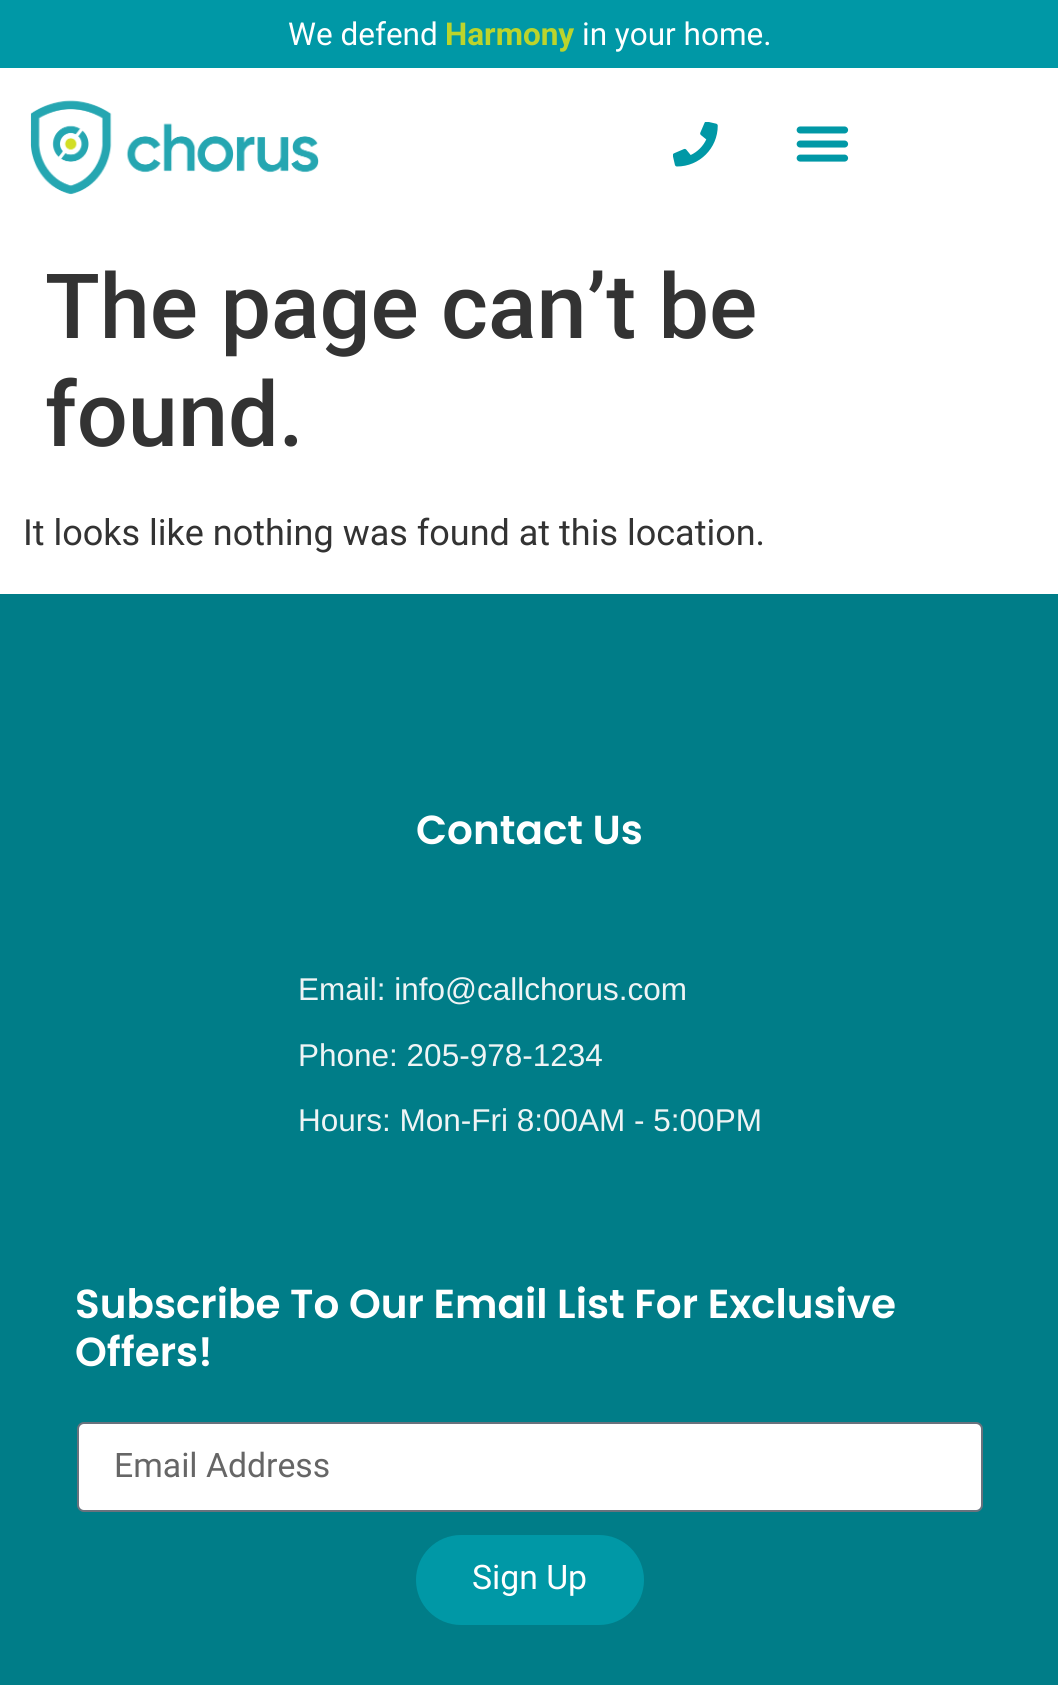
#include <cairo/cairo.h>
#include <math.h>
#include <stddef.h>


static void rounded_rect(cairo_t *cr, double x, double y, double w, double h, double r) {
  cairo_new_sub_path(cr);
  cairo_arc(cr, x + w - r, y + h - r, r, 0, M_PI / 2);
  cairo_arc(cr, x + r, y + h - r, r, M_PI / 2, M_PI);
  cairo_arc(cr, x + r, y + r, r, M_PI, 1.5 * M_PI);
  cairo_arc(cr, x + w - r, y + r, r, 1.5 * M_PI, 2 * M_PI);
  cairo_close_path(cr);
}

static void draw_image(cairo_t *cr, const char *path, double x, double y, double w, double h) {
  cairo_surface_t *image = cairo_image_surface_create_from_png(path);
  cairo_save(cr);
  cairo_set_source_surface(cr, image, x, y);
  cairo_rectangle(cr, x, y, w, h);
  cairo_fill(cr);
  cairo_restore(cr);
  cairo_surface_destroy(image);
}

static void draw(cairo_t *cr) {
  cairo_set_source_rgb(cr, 1, 1, 1);
  cairo_paint(cr);
  cairo_set_source_rgb(cr, 0, 152 / 255.0, 166 / 255.0);
  cairo_rectangle(cr, 0, 0, 1058, 68);
  cairo_fill(cr);
  draw_image(cr, "images/1.png", 30, 100, 289, 95);
  draw_image(cr, "images/2.png", 673, 122, 45, 45);
  draw_image(cr, "images/3.png", 796, 126, 53, 36);
  cairo_set_source_rgb(cr, 0, 125 / 255.0, 136 / 255.0);
  cairo_rectangle(cr, 0, 594, 1058, 1091);
  cairo_fill(cr);
  cairo_set_source_rgb(cr, 1, 1, 1);
  rounded_rect(cr, 78, 1423, 904, 88, 6);
  cairo_fill_preserve(cr);
  cairo_set_source_rgb(cr, 105 / 255.0, 114 / 255.0, 125 / 255.0);
  cairo_stroke(cr);
  cairo_set_source_rgb(cr, 0, 152 / 255.0, 166 / 255.0);
  rounded_rect(cr, 416, 1535, 228, 90, 45);
  cairo_fill(cr);
  cairo_select_font_face(cr, "Roboto", CAIRO_FONT_SLANT_NORMAL, CAIRO_FONT_WEIGHT_NORMAL);
  cairo_set_font_size(cr, 31.5);
  cairo_set_source_rgb(cr, 1, 1, 1);
  cairo_move_to(cr, 288, 45);
  cairo_show_text(cr, "We defend");
  cairo_select_font_face(cr, "Roboto", CAIRO_FONT_SLANT_NORMAL, CAIRO_FONT_WEIGHT_BOLD);
  cairo_set_source_rgb(cr, 188 / 255.0, 212 / 255.0, 44 / 255.0);
  cairo_move_to(cr, 445, 45);
  cairo_show_text(cr, "Harmony");
  cairo_select_font_face(cr, "Roboto", CAIRO_FONT_SLANT_NORMAL, CAIRO_FONT_WEIGHT_NORMAL);
  cairo_set_source_rgb(cr, 1, 1, 1);
  cairo_move_to(cr, 582, 45);
  cairo_show_text(cr, "in your home.");
  cairo_select_font_face(cr, "Roboto Medium", CAIRO_FONT_SLANT_NORMAL, CAIRO_FONT_WEIGHT_NORMAL);
  cairo_set_font_size(cr, 90);
  cairo_set_source_rgb(cr, 51 / 255.0, 51 / 255.0, 51 / 255.0);
  cairo_move_to(cr, 45, 338);
  cairo_show_text(cr, "The page can’t be");
  cairo_move_to(cr, 45, 446);
  cairo_show_text(cr, "found.");
  cairo_select_font_face(cr, "Roboto", CAIRO_FONT_SLANT_NORMAL, CAIRO_FONT_WEIGHT_NORMAL);
  cairo_set_font_size(cr, 36);
  cairo_move_to(cr, 23, 545);
  cairo_show_text(cr, "It looks like nothing was found at this location.");
  cairo_select_font_face(cr, "Poppins SemiBold", CAIRO_FONT_SLANT_NORMAL, CAIRO_FONT_WEIGHT_NORMAL);
  cairo_set_font_size(cr, 40.5);
  cairo_set_source_rgb(cr, 1, 1, 1);
  cairo_move_to(cr, 416, 844);
  cairo_show_text(cr, "Contact Us");
  cairo_select_font_face(cr, "Liberation Sans", CAIRO_FONT_SLANT_NORMAL, CAIRO_FONT_WEIGHT_NORMAL);
  cairo_set_font_size(cr, 31.5);
  cairo_set_source_rgb(cr, 239 / 255.0, 244 / 255.0, 245 / 255.0);
  cairo_move_to(cr, 298, 1000);
  cairo_show_text(cr, "Email: info@callchorus.com");
  cairo_move_to(cr, 298, 1066);
  cairo_show_text(cr, "Phone: 205-978-1234");
  cairo_move_to(cr, 298, 1131);
  cairo_show_text(cr, "Hours: Mon-Fri 8:00AM - 5:00PM");
  cairo_select_font_face(cr, "Poppins SemiBold", CAIRO_FONT_SLANT_NORMAL, CAIRO_FONT_WEIGHT_NORMAL);
  cairo_set_font_size(cr, 40.5);
  cairo_set_source_rgb(cr, 1, 1, 1);
  cairo_move_to(cr, 75, 1318);
  cairo_show_text(cr, "Subscribe To Our Email List For Exclusive");
  cairo_move_to(cr, 75, 1366);
  cairo_show_text(cr, "Offers!");
  cairo_select_font_face(cr, "Roboto", CAIRO_FONT_SLANT_NORMAL, CAIRO_FONT_WEIGHT_NORMAL);
  cairo_set_font_size(cr, 33.75);
  cairo_set_source_rgb(cr, 102 / 255.0, 102 / 255.0, 102 / 255.0);
  cairo_move_to(cr, 114, 1477);
  cairo_show_text(cr, "Email Address");
  cairo_set_source_rgb(cr, 1, 1, 1);
  cairo_move_to(cr, 472, 1589);
  cairo_show_text(cr, "Sign Up");
}

int main(void) {
  cairo_surface_t *surface = cairo_image_surface_create(CAIRO_FORMAT_RGB24, 1058, 1685);
  cairo_t *cr = cairo_create(surface);
  cairo_font_options_t *options = cairo_font_options_create();
  cairo_font_options_set_hint_metrics(options, CAIRO_HINT_METRICS_OFF);
  cairo_font_options_set_hint_style(options, CAIRO_HINT_STYLE_NONE);
  cairo_set_font_options(cr, options);
  cairo_set_miter_limit(cr, 4);
  draw(cr);
  cairo_surface_write_to_png(surface, "out.png");
  cairo_font_options_destroy(options);
  cairo_destroy(cr);
  cairo_surface_destroy(surface);
  return 0;
}
